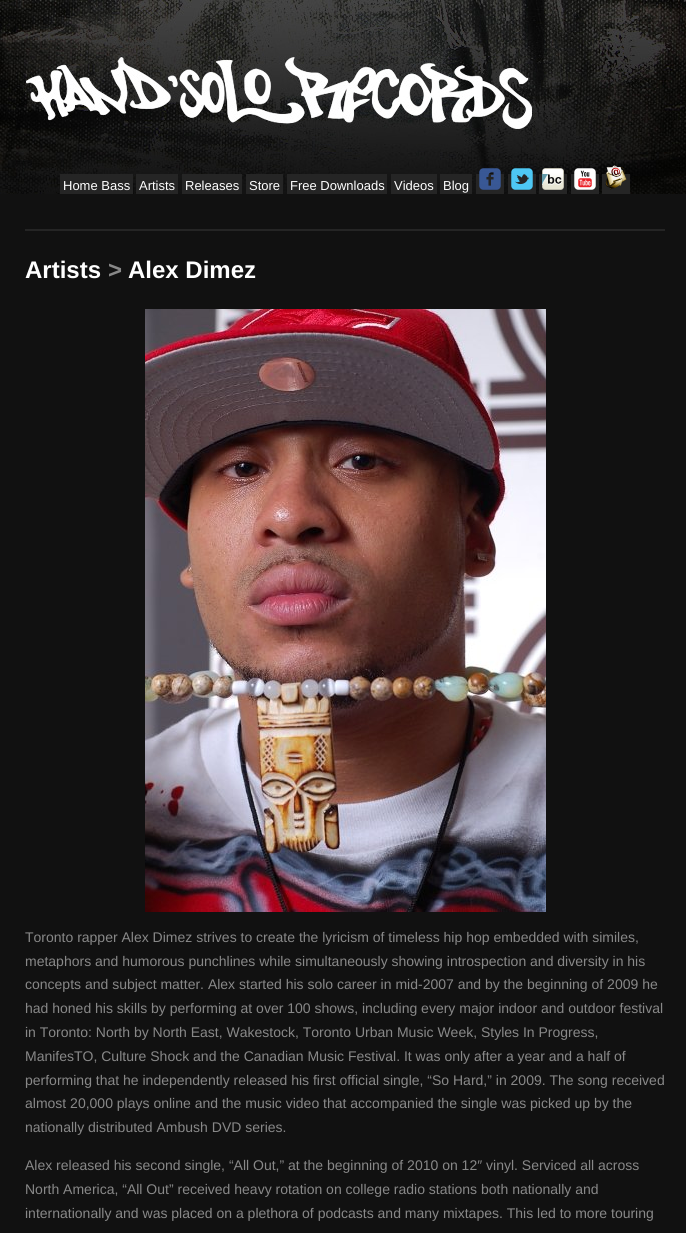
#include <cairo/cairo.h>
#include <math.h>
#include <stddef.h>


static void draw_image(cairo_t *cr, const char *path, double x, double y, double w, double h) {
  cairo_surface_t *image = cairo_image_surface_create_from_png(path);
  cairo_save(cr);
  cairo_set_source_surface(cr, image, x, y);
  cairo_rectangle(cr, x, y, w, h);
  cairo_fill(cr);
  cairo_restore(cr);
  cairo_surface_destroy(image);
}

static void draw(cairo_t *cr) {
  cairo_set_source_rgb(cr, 1, 1, 1);
  cairo_paint(cr);
  draw_image(cr, "images/1.png", 0, 0, 686, 194);
  cairo_set_source_rgb(cr, 37 / 255.0, 37 / 255.0, 37 / 255.0);
  cairo_rectangle(cr, 476, 174, 28, 20);
  cairo_fill(cr);
  draw_image(cr, "images/2.png", 479, 168, 22, 22);
  cairo_rectangle(cr, 508, 174, 28, 20);
  cairo_fill(cr);
  draw_image(cr, "images/3.png", 511, 168, 22, 22);
  cairo_rectangle(cr, 539, 174, 28, 20);
  cairo_fill(cr);
  draw_image(cr, "images/4.png", 542, 168, 22, 22);
  cairo_rectangle(cr, 571, 174, 28, 20);
  cairo_fill(cr);
  draw_image(cr, "images/5.png", 574, 168, 22, 22);
  cairo_rectangle(cr, 602, 174, 28, 20);
  cairo_fill(cr);
  draw_image(cr, "images/6.png", 605, 165, 22, 25);
  cairo_rectangle(cr, 60, 174, 73, 20);
  cairo_fill(cr);
  cairo_rectangle(cr, 136, 174, 42, 20);
  cairo_fill(cr);
  cairo_rectangle(cr, 182, 174, 60, 20);
  cairo_fill(cr);
  cairo_rectangle(cr, 246, 174, 37, 20);
  cairo_fill(cr);
  cairo_rectangle(cr, 287, 174, 100, 20);
  cairo_fill(cr);
  cairo_rectangle(cr, 391, 174, 46, 20);
  cairo_fill(cr);
  cairo_rectangle(cr, 440, 174, 32, 20);
  cairo_fill(cr);
  cairo_set_source_rgb(cr, 17 / 255.0, 17 / 255.0, 17 / 255.0);
  cairo_rectangle(cr, 0, 194, 686, 1039);
  cairo_fill(cr);
  cairo_set_source_rgb(cr, 37 / 255.0, 37 / 255.0, 37 / 255.0);
  cairo_rectangle(cr, 25, 229, 640, 2);
  cairo_fill(cr);
  draw_image(cr, "images/7.png", 145, 309, 401, 603);
  cairo_select_font_face(cr, "Liberation Sans", CAIRO_FONT_SLANT_NORMAL, CAIRO_FONT_WEIGHT_NORMAL);
  cairo_set_font_size(cr, 13);
  cairo_set_source_rgb(cr, 1, 1, 1);
  cairo_move_to(cr, 63, 190);
  cairo_show_text(cr, "Home Bass");
  cairo_move_to(cr, 139, 190);
  cairo_show_text(cr, "Artists");
  cairo_move_to(cr, 185, 190);
  cairo_show_text(cr, "Releases");
  cairo_move_to(cr, 249, 190);
  cairo_show_text(cr, "Store");
  cairo_move_to(cr, 290, 190);
  cairo_show_text(cr, "Free Downloads");
  cairo_move_to(cr, 394, 190);
  cairo_show_text(cr, "Videos");
  cairo_move_to(cr, 443, 190);
  cairo_show_text(cr, "Blog");
  cairo_select_font_face(cr, "Liberation Sans", CAIRO_FONT_SLANT_NORMAL, CAIRO_FONT_WEIGHT_BOLD);
  cairo_set_font_size(cr, 24);
  cairo_move_to(cr, 25, 278);
  cairo_show_text(cr, "Artists");
  cairo_set_source_rgb(cr, 136 / 255.0, 136 / 255.0, 136 / 255.0);
  cairo_move_to(cr, 108, 278);
  cairo_show_text(cr, ">");
  cairo_set_source_rgb(cr, 1, 1, 1);
  cairo_move_to(cr, 128, 278);
  cairo_show_text(cr, "Alex Dimez");
  cairo_select_font_face(cr, "Liberation Sans", CAIRO_FONT_SLANT_NORMAL, CAIRO_FONT_WEIGHT_NORMAL);
  cairo_set_font_size(cr, 14);
  cairo_set_source_rgb(cr, 136 / 255.0, 136 / 255.0, 136 / 255.0);
  cairo_move_to(cr, 25, 942);
  cairo_show_text(cr, "Toronto rapper Alex Dimez strives to create the lyricism of timeless hip hop embedded with similes,");
  cairo_move_to(cr, 25, 966);
  cairo_show_text(cr, "metaphors and humorous punchlines while simultaneously showing introspection and diversity in his");
  cairo_move_to(cr, 25, 989);
  cairo_show_text(cr, "concepts and subject matter. Alex started his solo career in mid-2007 and by the beginning of 2009 he");
  cairo_move_to(cr, 25, 1013);
  cairo_show_text(cr, "had honed his skills by performing at over 100 shows, including every major indoor and outdoor festival");
  cairo_move_to(cr, 25, 1037);
  cairo_show_text(cr, "in Toronto: North by North East, Wakestock, Toronto Urban Music Week, Styles In Progress,");
  cairo_move_to(cr, 25, 1061);
  cairo_show_text(cr, "ManifesTO, Culture Shock and the Canadian Music Festival. It was only after a year and a half of");
  cairo_move_to(cr, 25, 1085);
  cairo_show_text(cr, "performing that he independently released his first official single, “So Hard,” in 2009. The song received");
  cairo_move_to(cr, 25, 1108);
  cairo_show_text(cr, "almost 20,000 plays online and the music video that accompanied the single was picked up by the");
  cairo_move_to(cr, 25, 1132);
  cairo_show_text(cr, "nationally distributed Ambush DVD series.");
  cairo_move_to(cr, 25, 1170);
  cairo_show_text(cr, "Alex released his second single, “All Out,” at the beginning of 2010 on 12″ vinyl. Serviced all across");
  cairo_move_to(cr, 25, 1194);
  cairo_show_text(cr, "North America, “All Out” received heavy rotation on college radio stations both nationally and");
  cairo_move_to(cr, 25, 1218);
  cairo_show_text(cr, "internationally and was placed on a plethora of podcasts and many mixtapes. This led to more touring");
}

int main(void) {
  cairo_surface_t *surface = cairo_image_surface_create(CAIRO_FORMAT_RGB24, 686, 1233);
  cairo_t *cr = cairo_create(surface);
  cairo_font_options_t *options = cairo_font_options_create();
  cairo_font_options_set_hint_metrics(options, CAIRO_HINT_METRICS_OFF);
  cairo_font_options_set_hint_style(options, CAIRO_HINT_STYLE_NONE);
  cairo_set_font_options(cr, options);
  cairo_set_miter_limit(cr, 4);
  draw(cr);
  cairo_surface_write_to_png(surface, "out.png");
  cairo_font_options_destroy(options);
  cairo_destroy(cr);
  cairo_surface_destroy(surface);
  return 0;
}
